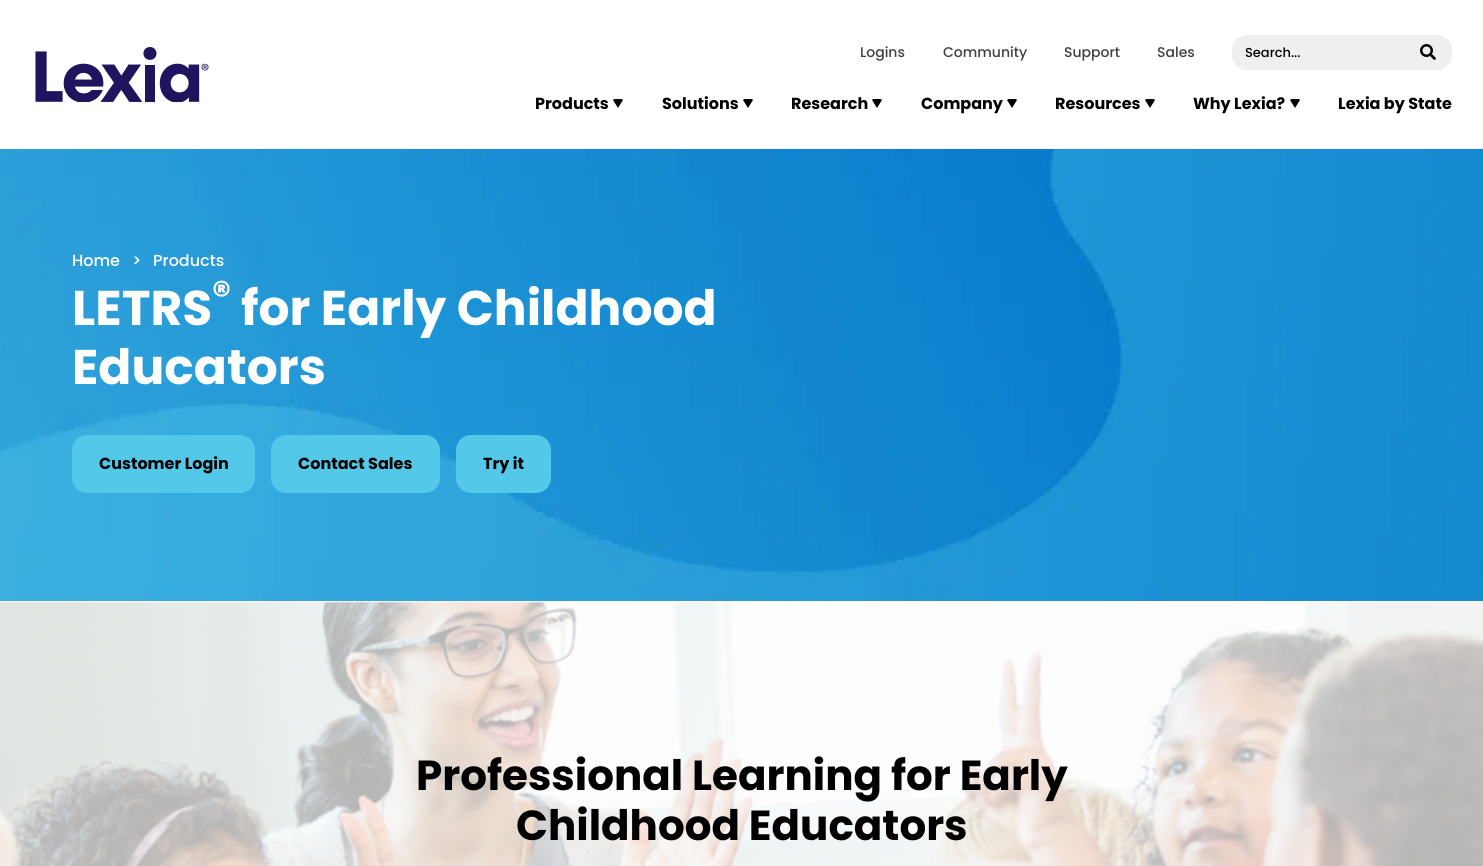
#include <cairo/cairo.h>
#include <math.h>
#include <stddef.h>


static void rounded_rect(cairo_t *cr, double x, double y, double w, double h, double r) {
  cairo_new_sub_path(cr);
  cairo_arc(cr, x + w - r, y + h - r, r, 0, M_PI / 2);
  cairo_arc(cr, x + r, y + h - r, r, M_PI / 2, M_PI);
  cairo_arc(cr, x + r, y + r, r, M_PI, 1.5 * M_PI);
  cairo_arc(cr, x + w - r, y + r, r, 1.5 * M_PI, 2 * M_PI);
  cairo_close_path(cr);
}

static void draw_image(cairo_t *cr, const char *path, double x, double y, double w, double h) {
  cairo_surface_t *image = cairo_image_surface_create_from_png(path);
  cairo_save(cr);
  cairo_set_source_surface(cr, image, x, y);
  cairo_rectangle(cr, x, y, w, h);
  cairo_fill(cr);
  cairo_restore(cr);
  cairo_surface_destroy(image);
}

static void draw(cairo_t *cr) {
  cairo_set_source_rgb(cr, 1, 1, 1);
  cairo_paint(cr);
  draw_image(cr, "images/1.png", 35, 47, 174, 55);
  cairo_set_source_rgb(cr, 239 / 255.0, 239 / 255.0, 239 / 255.0);
  rounded_rect(cr, 1232, 35, 220, 35, 15);
  cairo_fill(cr);
  draw_image(cr, "images/2.png", 1420, 44, 16, 16);
  cairo_set_source_rgb(cr, 0, 0, 0);
  cairo_new_path(cr);
  cairo_move_to(cr, 615, 99);
  cairo_curve_to(cr, 614, 99, 613.5, 99.5, 613, 100);
  cairo_line_to(cr, 618, 108);
  cairo_line_to(cr, 623, 100);
  cairo_curve_to(cr, 622.5, 99.5, 622, 99, 621, 99);
  cairo_close_path(cr);
  cairo_fill(cr);
  cairo_new_path(cr);
  cairo_move_to(cr, 745, 99);
  cairo_curve_to(cr, 744, 99, 743.5, 99.5, 743, 100);
  cairo_line_to(cr, 748, 108);
  cairo_line_to(cr, 753, 100);
  cairo_curve_to(cr, 752.5, 99.5, 752, 99, 751, 99);
  cairo_close_path(cr);
  cairo_fill(cr);
  cairo_new_path(cr);
  cairo_move_to(cr, 874, 99);
  cairo_curve_to(cr, 873, 99, 872.5, 99.5, 872, 100);
  cairo_line_to(cr, 877, 108);
  cairo_line_to(cr, 882, 100);
  cairo_curve_to(cr, 881.5, 99.5, 881, 99, 880, 99);
  cairo_close_path(cr);
  cairo_fill(cr);
  cairo_new_path(cr);
  cairo_move_to(cr, 1009, 99);
  cairo_curve_to(cr, 1008, 99, 1007.5, 99.5, 1007, 100);
  cairo_line_to(cr, 1012, 108);
  cairo_line_to(cr, 1017, 100);
  cairo_curve_to(cr, 1016.5, 99.5, 1016, 99, 1015, 99);
  cairo_close_path(cr);
  cairo_fill(cr);
  cairo_new_path(cr);
  cairo_move_to(cr, 1147, 99);
  cairo_curve_to(cr, 1146, 99, 1145.5, 99.5, 1145, 100);
  cairo_line_to(cr, 1150, 108);
  cairo_line_to(cr, 1155, 100);
  cairo_curve_to(cr, 1154.5, 99.5, 1154, 99, 1153, 99);
  cairo_close_path(cr);
  cairo_fill(cr);
  cairo_new_path(cr);
  cairo_move_to(cr, 1292, 99);
  cairo_curve_to(cr, 1291, 99, 1290.5, 99.5, 1290, 100);
  cairo_line_to(cr, 1295, 108);
  cairo_line_to(cr, 1300, 100);
  cairo_curve_to(cr, 1299.5, 99.5, 1299, 99, 1298, 99);
  cairo_close_path(cr);
  cairo_fill(cr);
  draw_image(cr, "images/3.png", 0, 149, 1483, 452);
  cairo_set_source_rgb(cr, 84 / 255.0, 200 / 255.0, 232 / 255.0);
  rounded_rect(cr, 74.5, 437.5, 178, 53, 12.5);
  cairo_fill_preserve(cr);
  cairo_set_line_width(cr, 5);
  cairo_stroke(cr);
  rounded_rect(cr, 273.5, 437.5, 164, 53, 12.5);
  cairo_fill_preserve(cr);
  cairo_stroke(cr);
  rounded_rect(cr, 458.5, 437.5, 90, 53, 12.5);
  cairo_fill_preserve(cr);
  cairo_stroke(cr);
  draw_image(cr, "images/4.png", 0, 601, 1483, 265);
  cairo_select_font_face(cr, "Poppins Medium", CAIRO_FONT_SLANT_NORMAL, CAIRO_FONT_WEIGHT_NORMAL);
  cairo_set_font_size(cr, 14);
  cairo_set_source_rgb(cr, 64 / 255.0, 64 / 255.0, 64 / 255.0);
  cairo_move_to(cr, 860, 57);
  cairo_show_text(cr, "Logins");
  cairo_move_to(cr, 943, 57);
  cairo_show_text(cr, "Community");
  cairo_move_to(cr, 1064, 57);
  cairo_show_text(cr, "Support");
  cairo_move_to(cr, 1157, 57);
  cairo_show_text(cr, "Sales");
  cairo_set_font_size(cr, 13);
  cairo_set_source_rgb(cr, 0, 0, 0);
  cairo_move_to(cr, 1245, 57);
  cairo_show_text(cr, "Search...");
  cairo_select_font_face(cr, "Poppins", CAIRO_FONT_SLANT_NORMAL, CAIRO_FONT_WEIGHT_BOLD);
  cairo_set_font_size(cr, 16);
  cairo_move_to(cr, 535, 109);
  cairo_show_text(cr, "Products");
  cairo_move_to(cr, 662, 109);
  cairo_show_text(cr, "Solutions");
  cairo_move_to(cr, 791, 109);
  cairo_show_text(cr, "Research");
  cairo_move_to(cr, 921, 109);
  cairo_show_text(cr, "Company");
  cairo_move_to(cr, 1055, 109);
  cairo_show_text(cr, "Resources");
  cairo_move_to(cr, 1193, 109);
  cairo_show_text(cr, "Why Lexia?");
  cairo_move_to(cr, 1338, 109);
  cairo_show_text(cr, "Lexia by State");
  cairo_select_font_face(cr, "Poppins Medium", CAIRO_FONT_SLANT_NORMAL, CAIRO_FONT_WEIGHT_NORMAL);
  cairo_set_source_rgb(cr, 1, 1, 1);
  cairo_move_to(cr, 72, 266);
  cairo_show_text(cr, "Home");
  cairo_move_to(cr, 132, 266);
  cairo_show_text(cr, ">");
  cairo_move_to(cr, 153, 266);
  cairo_show_text(cr, "Products");
  cairo_select_font_face(cr, "Poppins", CAIRO_FONT_SLANT_NORMAL, CAIRO_FONT_WEIGHT_BOLD);
  cairo_set_font_size(cr, 48.75);
  cairo_move_to(cr, 72, 325);
  cairo_show_text(cr, "LETRS");
  cairo_set_font_size(cr, 37);
  cairo_move_to(cr, 212, 307);
  cairo_show_text(cr, "®");
  cairo_set_font_size(cr, 48.75);
  cairo_move_to(cr, 241, 325);
  cairo_show_text(cr, "for Early Childhood");
  cairo_move_to(cr, 72, 384);
  cairo_show_text(cr, "Educators");
  cairo_set_font_size(cr, 16);
  cairo_set_source_rgb(cr, 0, 0, 0);
  cairo_move_to(cr, 99, 469);
  cairo_show_text(cr, "Customer Login");
  cairo_move_to(cr, 298, 469);
  cairo_show_text(cr, "Contact Sales");
  cairo_move_to(cr, 483, 469);
  cairo_show_text(cr, "Try it");
  cairo_set_font_size(cr, 42);
  cairo_move_to(cr, 416, 790);
  cairo_show_text(cr, "Professional Learning for Early");
  cairo_move_to(cr, 516, 840);
  cairo_show_text(cr, "Childhood Educators");
}

int main(void) {
  cairo_surface_t *surface = cairo_image_surface_create(CAIRO_FORMAT_RGB24, 1483, 866);
  cairo_t *cr = cairo_create(surface);
  cairo_font_options_t *options = cairo_font_options_create();
  cairo_font_options_set_hint_metrics(options, CAIRO_HINT_METRICS_OFF);
  cairo_font_options_set_hint_style(options, CAIRO_HINT_STYLE_NONE);
  cairo_set_font_options(cr, options);
  cairo_set_miter_limit(cr, 4);
  draw(cr);
  cairo_surface_write_to_png(surface, "out.png");
  cairo_font_options_destroy(options);
  cairo_destroy(cr);
  cairo_surface_destroy(surface);
  return 0;
}
